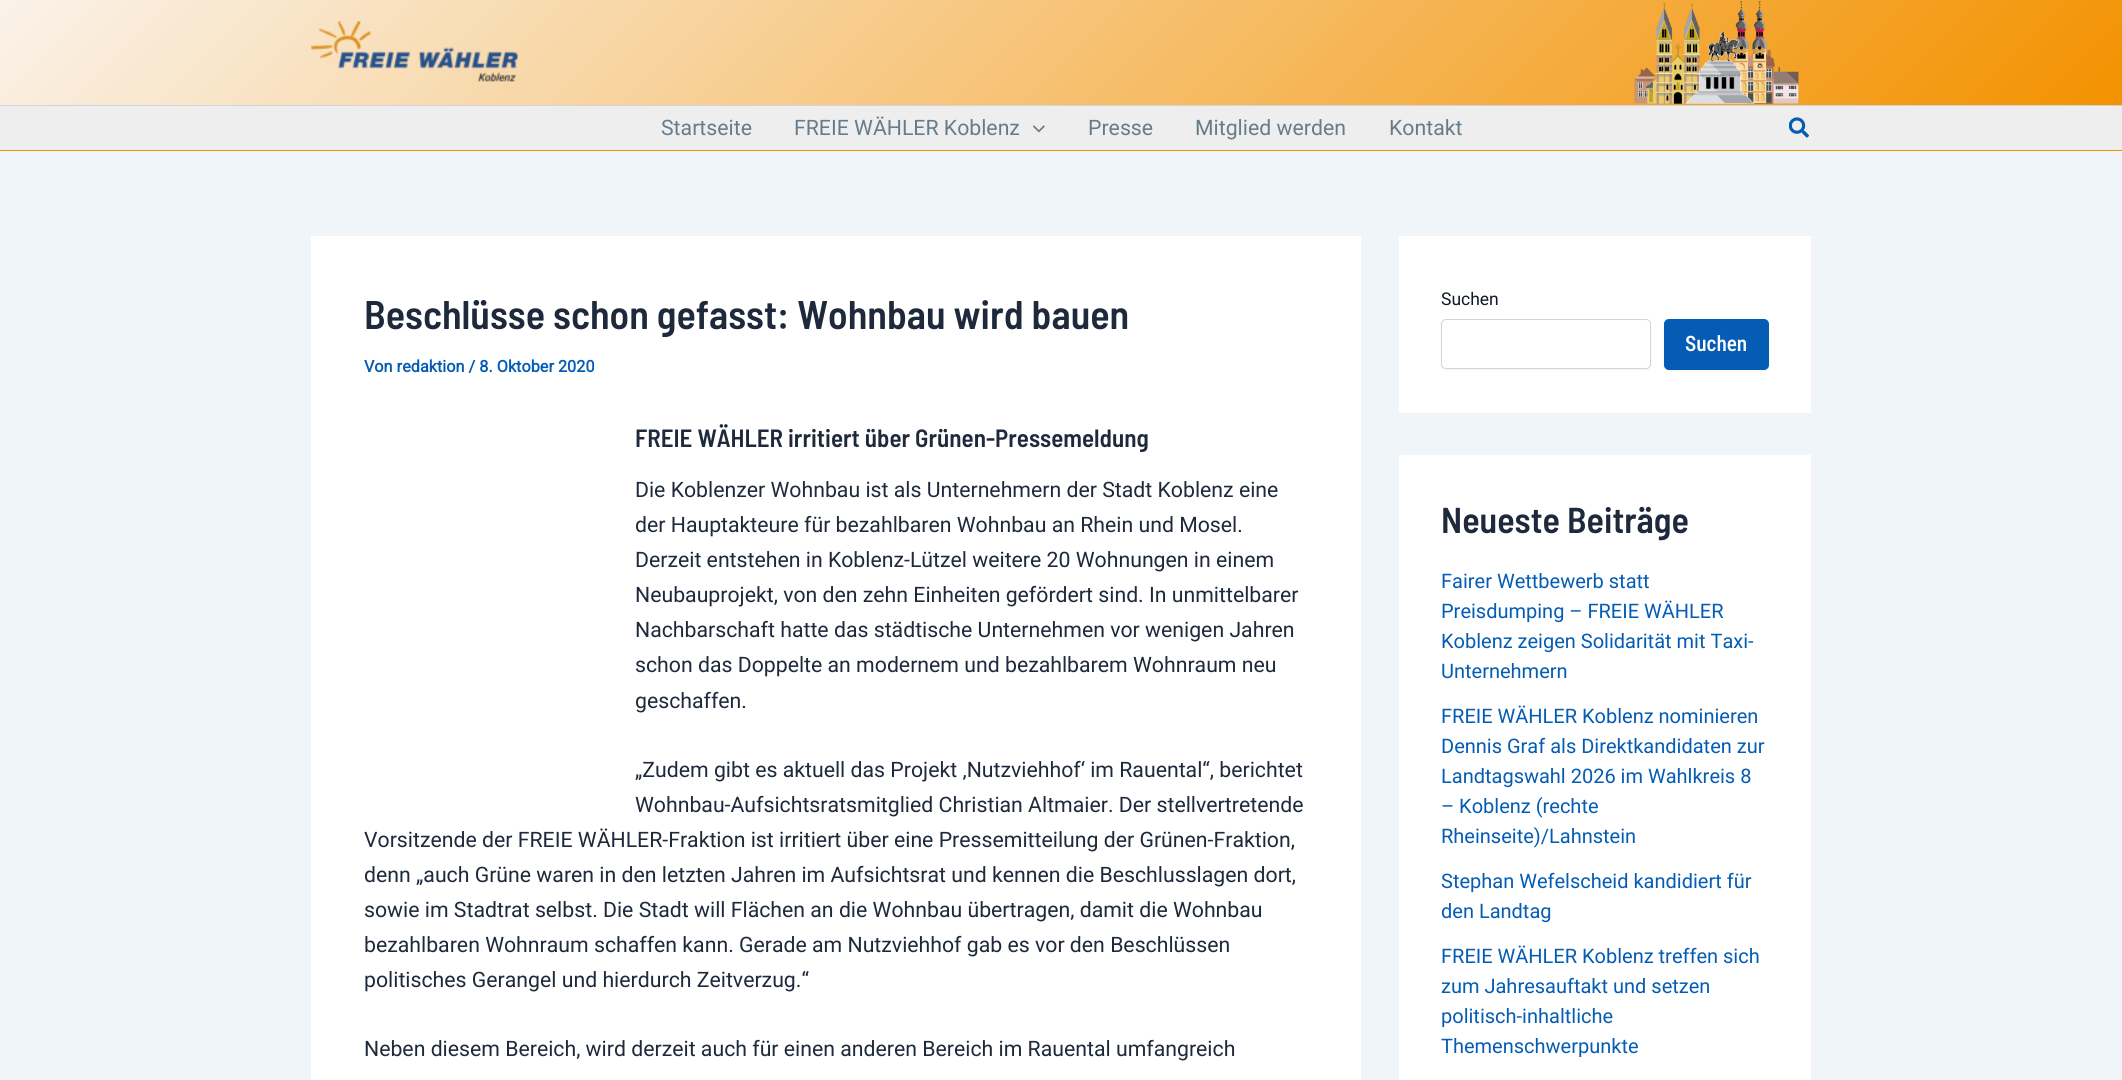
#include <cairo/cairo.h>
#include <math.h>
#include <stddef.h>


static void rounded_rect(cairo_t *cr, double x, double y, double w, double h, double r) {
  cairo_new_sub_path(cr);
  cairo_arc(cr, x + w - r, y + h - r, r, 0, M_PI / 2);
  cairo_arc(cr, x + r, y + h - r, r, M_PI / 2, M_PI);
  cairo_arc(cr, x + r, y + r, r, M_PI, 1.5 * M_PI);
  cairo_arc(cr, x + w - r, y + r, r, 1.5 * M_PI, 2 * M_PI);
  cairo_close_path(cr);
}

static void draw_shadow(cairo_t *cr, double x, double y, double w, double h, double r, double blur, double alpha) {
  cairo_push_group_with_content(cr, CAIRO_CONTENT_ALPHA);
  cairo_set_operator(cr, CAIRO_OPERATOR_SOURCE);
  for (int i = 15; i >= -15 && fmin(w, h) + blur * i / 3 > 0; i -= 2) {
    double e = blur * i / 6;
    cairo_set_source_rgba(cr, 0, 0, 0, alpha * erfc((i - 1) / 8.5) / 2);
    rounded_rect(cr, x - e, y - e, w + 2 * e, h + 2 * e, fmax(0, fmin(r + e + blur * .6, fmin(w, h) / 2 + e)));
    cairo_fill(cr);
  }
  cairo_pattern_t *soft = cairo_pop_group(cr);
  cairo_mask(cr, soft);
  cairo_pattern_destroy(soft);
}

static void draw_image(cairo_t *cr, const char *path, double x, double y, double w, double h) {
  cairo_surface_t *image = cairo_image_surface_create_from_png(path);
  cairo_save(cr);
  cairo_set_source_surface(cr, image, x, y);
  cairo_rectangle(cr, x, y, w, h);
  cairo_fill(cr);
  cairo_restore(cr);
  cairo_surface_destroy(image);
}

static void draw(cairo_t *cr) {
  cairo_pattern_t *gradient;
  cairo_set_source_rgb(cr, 240 / 255.0, 245 / 255.0, 250 / 255.0);
  cairo_paint(cr);
  gradient = cairo_pattern_create_linear(504, -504, 1618, 609);
  cairo_pattern_add_color_stop_rgba(gradient, 0, 250 / 255.0, 242 / 255.0, 233 / 255.0, 1);
  cairo_pattern_add_color_stop_rgba(gradient, 1, 243 / 255.0, 146 / 255.0, 0, 1);
  cairo_set_source(cr, gradient);
  cairo_pattern_destroy(gradient);
  cairo_rectangle(cr, 0, 0, 2122, 105);
  cairo_fill(cr);
  cairo_set_source_rgb(cr, 209 / 255.0, 213 / 255.0, 219 / 255.0);
  cairo_rectangle(cr, 0, 105, 2122, 1);
  cairo_fill(cr);
  draw_image(cr, "images/1.png", 311, 21, 207, 61);
  draw_image(cr, "images/2.png", 1633, 1, 166, 103);
  cairo_set_source_rgb(cr, 238 / 255.0, 238 / 255.0, 238 / 255.0);
  cairo_rectangle(cr, 0, 106, 2122, 44);
  cairo_fill(cr);
  cairo_set_source_rgb(cr, 243 / 255.0, 146 / 255.0, 0);
  cairo_rectangle(cr, 0, 150, 2122, 1);
  cairo_fill(cr);
  draw_image(cr, "images/3.png", 1033, 125, 12, 8);
  draw_image(cr, "images/4.png", 1789, 117, 20, 21);
  cairo_set_source_rgb(cr, 1, 1, 1);
  cairo_rectangle(cr, 311, 236, 1050, 844);
  cairo_fill(cr);
  cairo_rectangle(cr, 1399, 236, 412, 177);
  cairo_fill(cr);
  cairo_set_source_rgb(cr, 0, 0, 0);
  draw_shadow(cr, 1441, 320, 210, 50, 5, 1, 0.05);
  cairo_set_source_rgb(cr, 1, 1, 1);
  rounded_rect(cr, 1441.5, 319.5, 209, 49, 4.5);
  cairo_fill_preserve(cr);
  cairo_set_source_rgb(cr, 209 / 255.0, 213 / 255.0, 219 / 255.0);
  cairo_set_line_width(cr, 1);
  cairo_stroke(cr);
  cairo_set_source_rgb(cr, 0, 0, 0);
  draw_shadow(cr, 1664, 320, 105, 51, 5, 1, 0.05);
  cairo_set_source_rgb(cr, 4 / 255.0, 92 / 255.0, 180 / 255.0);
  rounded_rect(cr, 1664, 319, 105, 51, 5);
  cairo_fill(cr);
  cairo_set_source_rgb(cr, 1, 1, 1);
  cairo_rectangle(cr, 1399, 455, 412, 625);
  cairo_fill(cr);
  cairo_select_font_face(cr, "Roboto", CAIRO_FONT_SLANT_NORMAL, CAIRO_FONT_WEIGHT_NORMAL);
  cairo_set_font_size(cr, 21.25);
  cairo_set_source_rgb(cr, 103 / 255.0, 124 / 255.0, 139 / 255.0);
  cairo_move_to(cr, 661, 135);
  cairo_show_text(cr, "Startseite");
  cairo_move_to(cr, 794, 135);
  cairo_show_text(cr, "FREIE WÄHLER Koblenz");
  cairo_move_to(cr, 1088, 135);
  cairo_show_text(cr, "Presse");
  cairo_move_to(cr, 1195, 135);
  cairo_show_text(cr, "Mitglied werden");
  cairo_move_to(cr, 1389, 135);
  cairo_show_text(cr, "Kontakt");
  cairo_select_font_face(cr, "Barlow Semi Condensed SemiBold", CAIRO_FONT_SLANT_NORMAL, CAIRO_FONT_WEIGHT_NORMAL);
  cairo_set_font_size(cr, 40);
  cairo_set_source_rgb(cr, 30 / 255.0, 41 / 255.0, 59 / 255.0);
  cairo_move_to(cr, 364, 329);
  cairo_show_text(cr, "Beschlüsse schon gefasst: Wohnbau wird bauen");
  cairo_select_font_face(cr, "Roboto", CAIRO_FONT_SLANT_NORMAL, CAIRO_FONT_WEIGHT_BOLD);
  cairo_set_font_size(cr, 16.25);
  cairo_set_source_rgb(cr, 4 / 255.0, 92 / 255.0, 180 / 255.0);
  cairo_move_to(cr, 364, 372);
  cairo_show_text(cr, "Von redaktion / 8. Oktober 2020");
  cairo_select_font_face(cr, "Barlow Semi Condensed SemiBold", CAIRO_FONT_SLANT_NORMAL, CAIRO_FONT_WEIGHT_NORMAL);
  cairo_set_font_size(cr, 25);
  cairo_set_source_rgb(cr, 30 / 255.0, 41 / 255.0, 59 / 255.0);
  cairo_move_to(cr, 635, 447);
  cairo_show_text(cr, "FREIE WÄHLER irritiert über Grünen-Pressemeldung");
  cairo_select_font_face(cr, "Roboto", CAIRO_FONT_SLANT_NORMAL, CAIRO_FONT_WEIGHT_NORMAL);
  cairo_set_font_size(cr, 21.25);
  cairo_move_to(cr, 635, 497);
  cairo_show_text(cr, "Die Koblenzer Wohnbau ist als Unternehmern der Stadt Koblenz eine");
  cairo_move_to(cr, 635, 532);
  cairo_show_text(cr, "der Hauptakteure für bezahlbaren Wohnbau an Rhein und Mosel.");
  cairo_move_to(cr, 635, 567);
  cairo_show_text(cr, "Derzeit entstehen in Koblenz-Lützel weitere 20 Wohnungen in einem");
  cairo_move_to(cr, 635, 602);
  cairo_show_text(cr, "Neubauprojekt, von den zehn Einheiten gefördert sind. In unmittelbarer");
  cairo_move_to(cr, 635, 637);
  cairo_show_text(cr, "Nachbarschaft hatte das städtische Unternehmen vor wenigen Jahren");
  cairo_move_to(cr, 635, 672);
  cairo_show_text(cr, "schon das Doppelte an modernem und bezahlbarem Wohnraum neu");
  cairo_move_to(cr, 635, 708);
  cairo_show_text(cr, "geschaffen.");
  cairo_move_to(cr, 635, 777);
  cairo_show_text(cr, "„Zudem gibt es aktuell das Projekt ‚Nutzviehhof‘ im Rauental“, berichtet");
  cairo_move_to(cr, 635, 812);
  cairo_show_text(cr, "Wohnbau-Aufsichtsratsmitglied Christian Altmaier. Der stellvertretende");
  cairo_move_to(cr, 364, 847);
  cairo_show_text(cr, "Vorsitzende der FREIE WÄHLER-Fraktion ist irritiert über eine Pressemitteilung der Grünen-Fraktion,");
  cairo_move_to(cr, 364, 882);
  cairo_show_text(cr, "denn „auch Grüne waren in den letzten Jahren im Aufsichtsrat und kennen die Beschlusslagen dort,");
  cairo_move_to(cr, 364, 917);
  cairo_show_text(cr, "sowie im Stadtrat selbst. Die Stadt will Flächen an die Wohnbau übertragen, damit die Wohnbau");
  cairo_move_to(cr, 364, 952);
  cairo_show_text(cr, "bezahlbaren Wohnraum schaffen kann. Gerade am Nutzviehhof gab es vor den Beschlüssen");
  cairo_move_to(cr, 364, 987);
  cairo_show_text(cr, "politisches Gerangel und hierdurch Zeitverzug.“");
  cairo_move_to(cr, 364, 1056);
  cairo_show_text(cr, "Neben diesem Bereich, wird derzeit auch für einen anderen Bereich im Rauental umfangreich");
  cairo_set_font_size(cr, 17.5);
  cairo_set_source_rgb(cr, 17 / 255.0, 24 / 255.0, 39 / 255.0);
  cairo_move_to(cr, 1441, 305);
  cairo_show_text(cr, "Suchen");
  cairo_select_font_face(cr, "Roboto Condensed Medium", CAIRO_FONT_SLANT_NORMAL, CAIRO_FONT_WEIGHT_NORMAL);
  cairo_set_font_size(cr, 21.25);
  cairo_set_source_rgb(cr, 1, 1, 1);
  cairo_move_to(cr, 1685, 351);
  cairo_show_text(cr, "Suchen");
  cairo_select_font_face(cr, "Barlow Semi Condensed SemiBold", CAIRO_FONT_SLANT_NORMAL, CAIRO_FONT_WEIGHT_NORMAL);
  cairo_set_font_size(cr, 36);
  cairo_set_source_rgb(cr, 30 / 255.0, 41 / 255.0, 59 / 255.0);
  cairo_move_to(cr, 1441, 533);
  cairo_show_text(cr, "Neueste Beiträge");
  cairo_select_font_face(cr, "Roboto", CAIRO_FONT_SLANT_NORMAL, CAIRO_FONT_WEIGHT_NORMAL);
  cairo_set_font_size(cr, 20);
  cairo_set_source_rgb(cr, 4 / 255.0, 92 / 255.0, 180 / 255.0);
  cairo_move_to(cr, 1441, 588);
  cairo_show_text(cr, "Fairer Wettbewerb statt");
  cairo_move_to(cr, 1441, 618);
  cairo_show_text(cr, "Preisdumping – FREIE WÄHLER");
  cairo_move_to(cr, 1441, 648);
  cairo_show_text(cr, "Koblenz zeigen Solidarität mit Taxi-");
  cairo_move_to(cr, 1441, 678);
  cairo_show_text(cr, "Unternehmern");
  cairo_move_to(cr, 1441, 723);
  cairo_show_text(cr, "FREIE WÄHLER Koblenz nominieren");
  cairo_move_to(cr, 1441, 753);
  cairo_show_text(cr, "Dennis Graf als Direktkandidaten zur");
  cairo_move_to(cr, 1441, 783);
  cairo_show_text(cr, "Landtagswahl 2026 im Wahlkreis 8");
  cairo_move_to(cr, 1441, 813);
  cairo_show_text(cr, "– Koblenz (rechte");
  cairo_move_to(cr, 1441, 843);
  cairo_show_text(cr, "Rheinseite)/Lahnstein");
  cairo_move_to(cr, 1441, 888);
  cairo_show_text(cr, "Stephan Wefelscheid kandidiert für");
  cairo_move_to(cr, 1441, 918);
  cairo_show_text(cr, "den Landtag");
  cairo_move_to(cr, 1441, 963);
  cairo_show_text(cr, "FREIE WÄHLER Koblenz treffen sich");
  cairo_move_to(cr, 1441, 993);
  cairo_show_text(cr, "zum Jahresauftakt und setzen");
  cairo_move_to(cr, 1441, 1023);
  cairo_show_text(cr, "politisch-inhaltliche");
  cairo_move_to(cr, 1441, 1053);
  cairo_show_text(cr, "Themenschwerpunkte");
}

int main(void) {
  cairo_surface_t *surface = cairo_image_surface_create(CAIRO_FORMAT_RGB24, 2122, 1080);
  cairo_t *cr = cairo_create(surface);
  cairo_font_options_t *options = cairo_font_options_create();
  cairo_font_options_set_hint_metrics(options, CAIRO_HINT_METRICS_OFF);
  cairo_font_options_set_hint_style(options, CAIRO_HINT_STYLE_NONE);
  cairo_set_font_options(cr, options);
  cairo_set_miter_limit(cr, 4);
  draw(cr);
  cairo_surface_write_to_png(surface, "out.png");
  cairo_font_options_destroy(options);
  cairo_destroy(cr);
  cairo_surface_destroy(surface);
  return 0;
}
